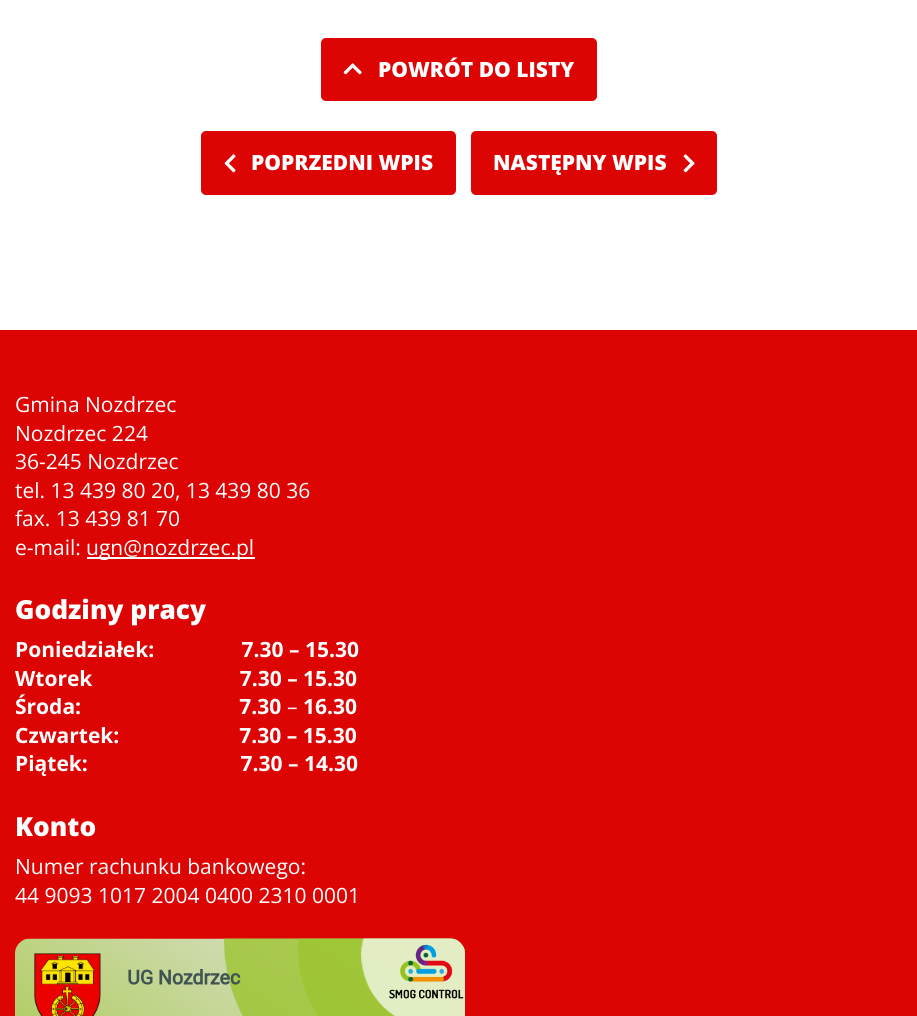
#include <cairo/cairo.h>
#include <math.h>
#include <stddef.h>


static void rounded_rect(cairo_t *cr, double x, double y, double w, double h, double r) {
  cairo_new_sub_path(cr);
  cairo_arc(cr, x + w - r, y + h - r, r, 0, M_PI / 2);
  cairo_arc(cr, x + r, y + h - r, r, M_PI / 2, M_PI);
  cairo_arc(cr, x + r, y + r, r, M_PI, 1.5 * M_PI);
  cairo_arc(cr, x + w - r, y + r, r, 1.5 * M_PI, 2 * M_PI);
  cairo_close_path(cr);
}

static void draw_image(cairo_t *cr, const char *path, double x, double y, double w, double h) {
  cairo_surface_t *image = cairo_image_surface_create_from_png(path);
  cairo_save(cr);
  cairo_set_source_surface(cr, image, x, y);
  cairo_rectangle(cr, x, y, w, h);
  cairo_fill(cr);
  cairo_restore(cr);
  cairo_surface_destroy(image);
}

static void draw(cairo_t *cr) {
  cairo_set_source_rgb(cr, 1, 1, 1);
  cairo_paint(cr);
  cairo_set_source_rgb(cr, 221 / 255.0, 4 / 255.0, 4 / 255.0);
  rounded_rect(cr, 321, 38, 276, 63, 5);
  cairo_fill(cr);
  draw_image(cr, "images/1.png", 343, 63, 19, 12);
  rounded_rect(cr, 201, 131, 255, 64, 5);
  cairo_fill(cr);
  draw_image(cr, "images/2.png", 224, 154, 12, 19);
  rounded_rect(cr, 471, 131, 246, 64, 5);
  cairo_fill(cr);
  draw_image(cr, "images/3.png", 683, 154, 12, 19);
  cairo_rectangle(cr, 0, 330, 917, 686);
  cairo_fill(cr);
  cairo_set_source_rgb(cr, 1, 1, 1);
  cairo_rectangle(cr, 87, 557, 168, 2);
  cairo_fill(cr);
  draw_image(cr, "images/4.png", 15, 938, 450, 78);
  cairo_select_font_face(cr, "Open Sans ExtraBold", CAIRO_FONT_SLANT_NORMAL, CAIRO_FONT_WEIGHT_NORMAL);
  cairo_set_font_size(cr, 21);
  cairo_move_to(cr, 378, 77);
  cairo_show_text(cr, "POWRÓT DO LISTY");
  cairo_move_to(cr, 251, 170);
  cairo_show_text(cr, "POPRZEDNI WPIS");
  cairo_move_to(cr, 493, 170);
  cairo_show_text(cr, "NASTĘPNY WPIS");
  cairo_select_font_face(cr, "Open Sans", CAIRO_FONT_SLANT_NORMAL, CAIRO_FONT_WEIGHT_NORMAL);
  cairo_move_to(cr, 15, 412);
  cairo_show_text(cr, "Gmina Nozdrzec");
  cairo_move_to(cr, 15, 441);
  cairo_show_text(cr, "Nozdrzec 224");
  cairo_move_to(cr, 15, 469);
  cairo_show_text(cr, "36-245 Nozdrzec");
  cairo_move_to(cr, 15, 498);
  cairo_show_text(cr, "tel. 13 439 80 20, 13 439 80 36");
  cairo_move_to(cr, 15, 526);
  cairo_show_text(cr, "fax. 13 439 81 70");
  cairo_move_to(cr, 15, 555);
  cairo_show_text(cr, "e-mail:");
  cairo_move_to(cr, 86, 555);
  cairo_show_text(cr, "ugn@nozdrzec.pl");
  cairo_select_font_face(cr, "Open Sans ExtraBold", CAIRO_FONT_SLANT_NORMAL, CAIRO_FONT_WEIGHT_NORMAL);
  cairo_set_font_size(cr, 26.25);
  cairo_move_to(cr, 15, 619);
  cairo_show_text(cr, "Godziny pracy");
  cairo_select_font_face(cr, "Open Sans", CAIRO_FONT_SLANT_NORMAL, CAIRO_FONT_WEIGHT_BOLD);
  cairo_set_font_size(cr, 21);
  cairo_move_to(cr, 15, 657);
  cairo_show_text(cr, "Poniedziałek:                7.30 – 15.30");
  cairo_move_to(cr, 15, 686);
  cairo_show_text(cr, "Wtorek                           7.30 – 15.30");
  cairo_move_to(cr, 15, 714);
  cairo_show_text(cr, "Środa:                             7.30");
  cairo_select_font_face(cr, "Open Sans", CAIRO_FONT_SLANT_NORMAL, CAIRO_FONT_WEIGHT_NORMAL);
  cairo_move_to(cr, 287, 714);
  cairo_show_text(cr, "–");
  cairo_select_font_face(cr, "Open Sans", CAIRO_FONT_SLANT_NORMAL, CAIRO_FONT_WEIGHT_BOLD);
  cairo_move_to(cr, 303, 714);
  cairo_show_text(cr, "16.30");
  cairo_move_to(cr, 15, 743);
  cairo_show_text(cr, "Czwartek:                      7.30 – 15.30");
  cairo_move_to(cr, 15, 771);
  cairo_show_text(cr, "Piątek:                            7.30 – 14.30");
  cairo_select_font_face(cr, "Open Sans ExtraBold", CAIRO_FONT_SLANT_NORMAL, CAIRO_FONT_WEIGHT_NORMAL);
  cairo_set_font_size(cr, 26.25);
  cairo_move_to(cr, 15, 836);
  cairo_show_text(cr, "Konto");
  cairo_select_font_face(cr, "Open Sans", CAIRO_FONT_SLANT_NORMAL, CAIRO_FONT_WEIGHT_NORMAL);
  cairo_set_font_size(cr, 21);
  cairo_move_to(cr, 15, 874);
  cairo_show_text(cr, "Numer rachunku bankowego:");
  cairo_move_to(cr, 15, 903);
  cairo_show_text(cr, "44 9093 1017 2004 0400 2310 0001");
}

int main(void) {
  cairo_surface_t *surface = cairo_image_surface_create(CAIRO_FORMAT_RGB24, 917, 1016);
  cairo_t *cr = cairo_create(surface);
  cairo_font_options_t *options = cairo_font_options_create();
  cairo_font_options_set_hint_metrics(options, CAIRO_HINT_METRICS_OFF);
  cairo_font_options_set_hint_style(options, CAIRO_HINT_STYLE_NONE);
  cairo_set_font_options(cr, options);
  cairo_set_miter_limit(cr, 4);
  draw(cr);
  cairo_surface_write_to_png(surface, "out.png");
  cairo_font_options_destroy(options);
  cairo_destroy(cr);
  cairo_surface_destroy(surface);
  return 0;
}
